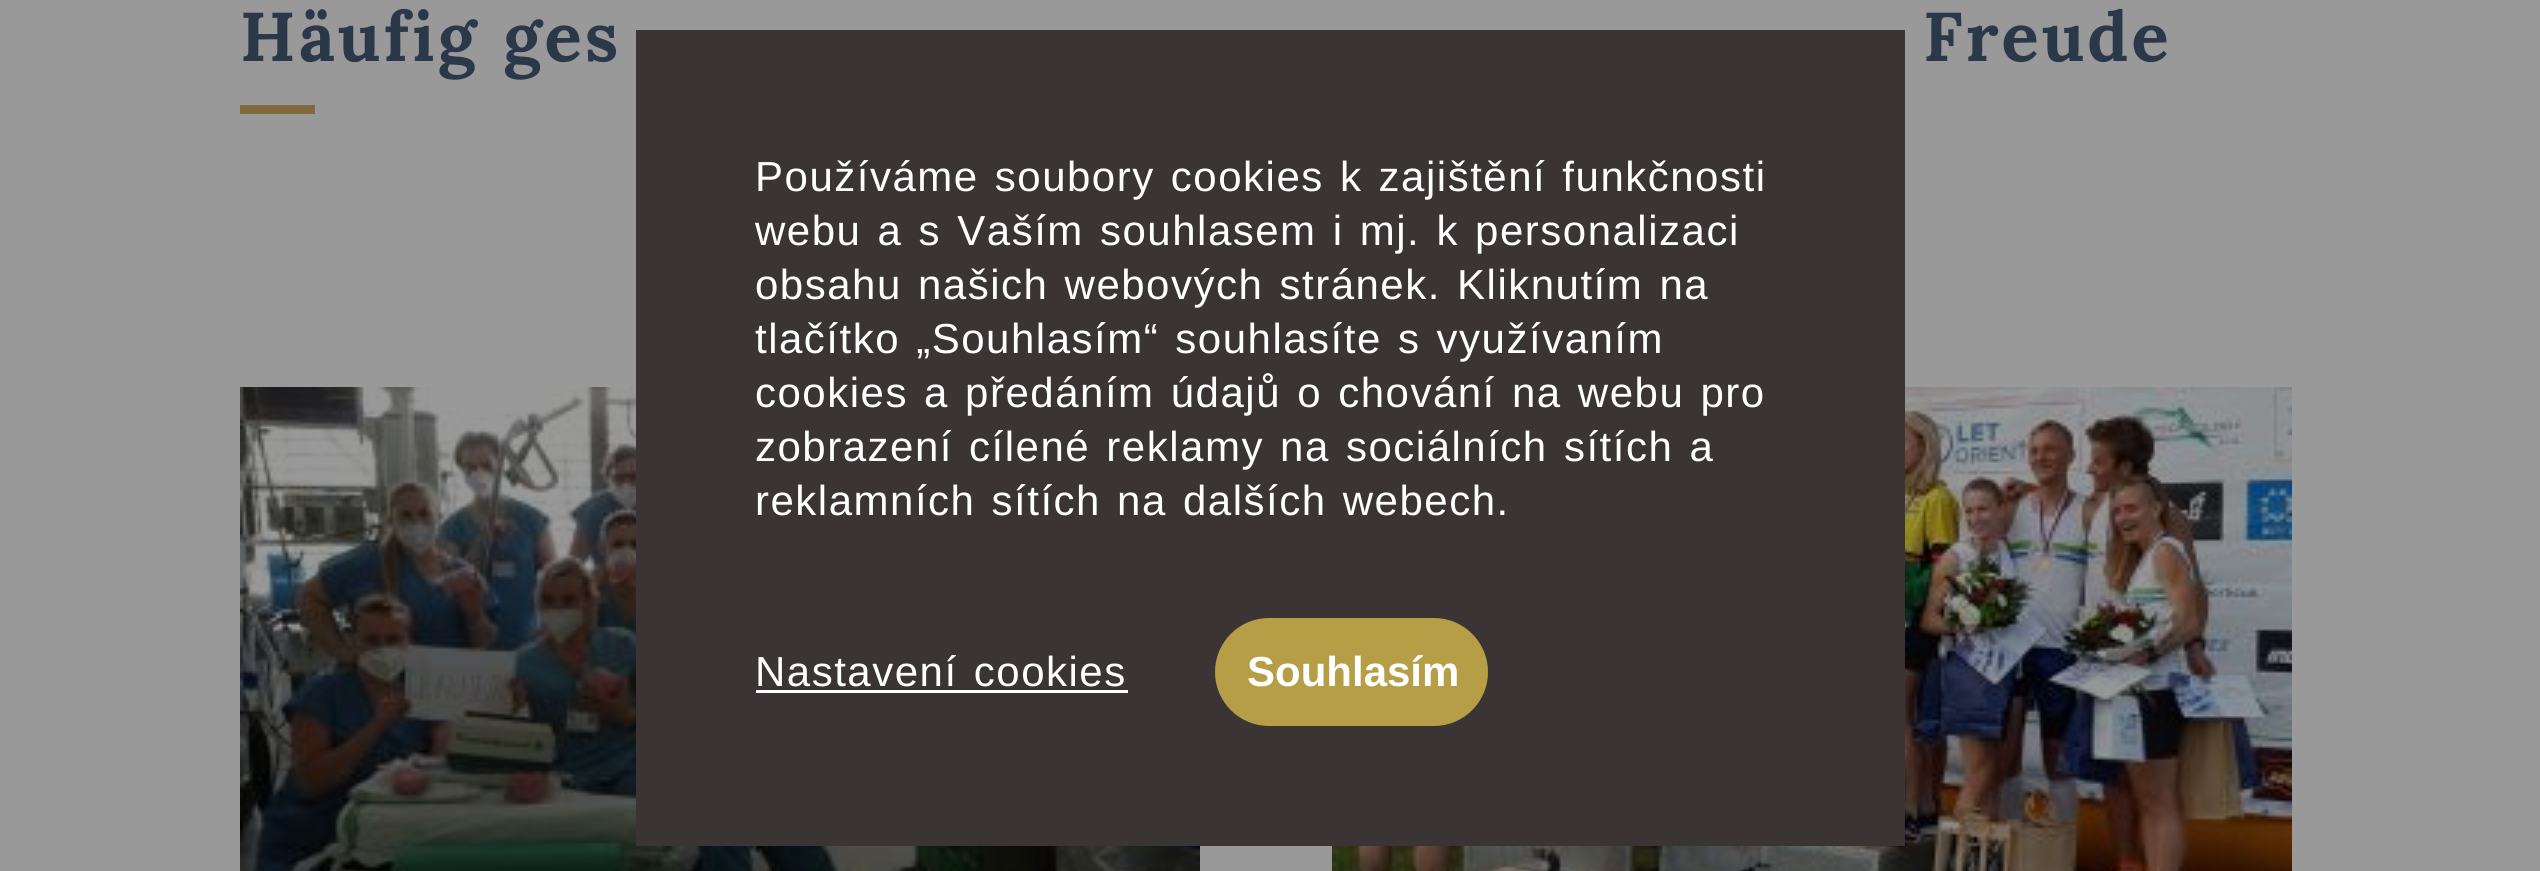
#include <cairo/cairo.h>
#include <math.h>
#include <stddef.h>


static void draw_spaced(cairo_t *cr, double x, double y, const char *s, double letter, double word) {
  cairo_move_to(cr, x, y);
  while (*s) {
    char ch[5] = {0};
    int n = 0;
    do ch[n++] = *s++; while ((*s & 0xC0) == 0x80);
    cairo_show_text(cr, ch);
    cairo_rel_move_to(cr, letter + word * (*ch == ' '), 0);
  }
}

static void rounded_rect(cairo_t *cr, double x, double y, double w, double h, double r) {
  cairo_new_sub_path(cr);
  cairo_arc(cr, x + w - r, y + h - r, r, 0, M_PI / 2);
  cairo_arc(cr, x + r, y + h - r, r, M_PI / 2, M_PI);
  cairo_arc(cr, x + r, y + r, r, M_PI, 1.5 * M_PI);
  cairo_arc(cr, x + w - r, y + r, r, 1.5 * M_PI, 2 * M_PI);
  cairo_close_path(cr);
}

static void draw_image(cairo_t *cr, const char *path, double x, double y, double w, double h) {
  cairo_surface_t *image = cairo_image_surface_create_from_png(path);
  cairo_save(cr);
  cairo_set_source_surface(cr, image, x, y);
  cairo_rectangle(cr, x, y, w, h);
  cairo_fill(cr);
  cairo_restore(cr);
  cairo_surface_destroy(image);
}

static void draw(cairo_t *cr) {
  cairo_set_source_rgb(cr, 153 / 255.0, 153 / 255.0, 153 / 255.0);
  cairo_paint(cr);
  cairo_set_source_rgb(cr, 128 / 255.0, 106 / 255.0, 57 / 255.0);
  cairo_rectangle(cr, 240, 105, 75, 9);
  cairo_fill(cr);
  draw_image(cr, "images/1.png", 240, 387, 960, 484);
  draw_image(cr, "images/2.png", 1332, 387, 960, 484);
  cairo_set_source_rgb(cr, 58 / 255.0, 52 / 255.0, 53 / 255.0);
  cairo_rectangle(cr, 636, 30, 1269, 816);
  cairo_fill(cr);
  cairo_set_source_rgb(cr, 1, 1, 1);
  cairo_rectangle(cr, 756, 690, 372, 3);
  cairo_fill(cr);
  cairo_set_source_rgb(cr, 181 / 255.0, 158 / 255.0, 70 / 255.0);
  rounded_rect(cr, 1215, 618, 273, 108, 54);
  cairo_fill(cr);
  cairo_select_font_face(cr, "Lora", CAIRO_FONT_SLANT_NORMAL, CAIRO_FONT_WEIGHT_BOLD);
  cairo_set_font_size(cr, 69);
  cairo_set_source_rgb(cr, 43 / 255.0, 56 / 255.0, 74 / 255.0);
  draw_spaced(cr, 240, 61, "Häufig ges", 3, 3);
  draw_spaced(cr, 1923, 61, "Freude", 3, 3);
  cairo_select_font_face(cr, "Liberation Sans", CAIRO_FONT_SLANT_NORMAL, CAIRO_FONT_WEIGHT_NORMAL);
  cairo_set_font_size(cr, 42);
  cairo_set_source_rgb(cr, 1, 1, 1);
  draw_spaced(cr, 755, 191, "Používáme soubory cookies k zajištění funkčnosti", 1.5, 3);
  draw_spaced(cr, 755, 245, "webu a s Vaším souhlasem i mj. k personalizaci", 1.5, 3);
  draw_spaced(cr, 755, 299, "obsahu našich webových stránek. Kliknutím na", 1.5, 3);
  draw_spaced(cr, 755, 353, "tlačítko „Souhlasím“ souhlasíte s využívaním", 1.5, 3);
  draw_spaced(cr, 755, 407, "cookies a předáním údajů o chování na webu pro", 1.5, 3);
  draw_spaced(cr, 755, 461, "zobrazení cílené reklamy na sociálních sítích a", 1.5, 3);
  draw_spaced(cr, 755, 515, "reklamních sítích na dalších webech.", 1.5, 3);
  draw_spaced(cr, 755, 686, "Nastavení cookies", 1.5, 3);
  cairo_select_font_face(cr, "Liberation Sans", CAIRO_FONT_SLANT_NORMAL, CAIRO_FONT_WEIGHT_BOLD);
  cairo_move_to(cr, 1247, 686);
  cairo_show_text(cr, "Souhlasím");
}

int main(void) {
  cairo_surface_t *surface = cairo_image_surface_create(CAIRO_FORMAT_RGB24, 2540, 871);
  cairo_t *cr = cairo_create(surface);
  cairo_font_options_t *options = cairo_font_options_create();
  cairo_font_options_set_hint_metrics(options, CAIRO_HINT_METRICS_OFF);
  cairo_font_options_set_hint_style(options, CAIRO_HINT_STYLE_NONE);
  cairo_set_font_options(cr, options);
  cairo_set_miter_limit(cr, 4);
  draw(cr);
  cairo_surface_write_to_png(surface, "out.png");
  cairo_font_options_destroy(options);
  cairo_destroy(cr);
  cairo_surface_destroy(surface);
  return 0;
}
